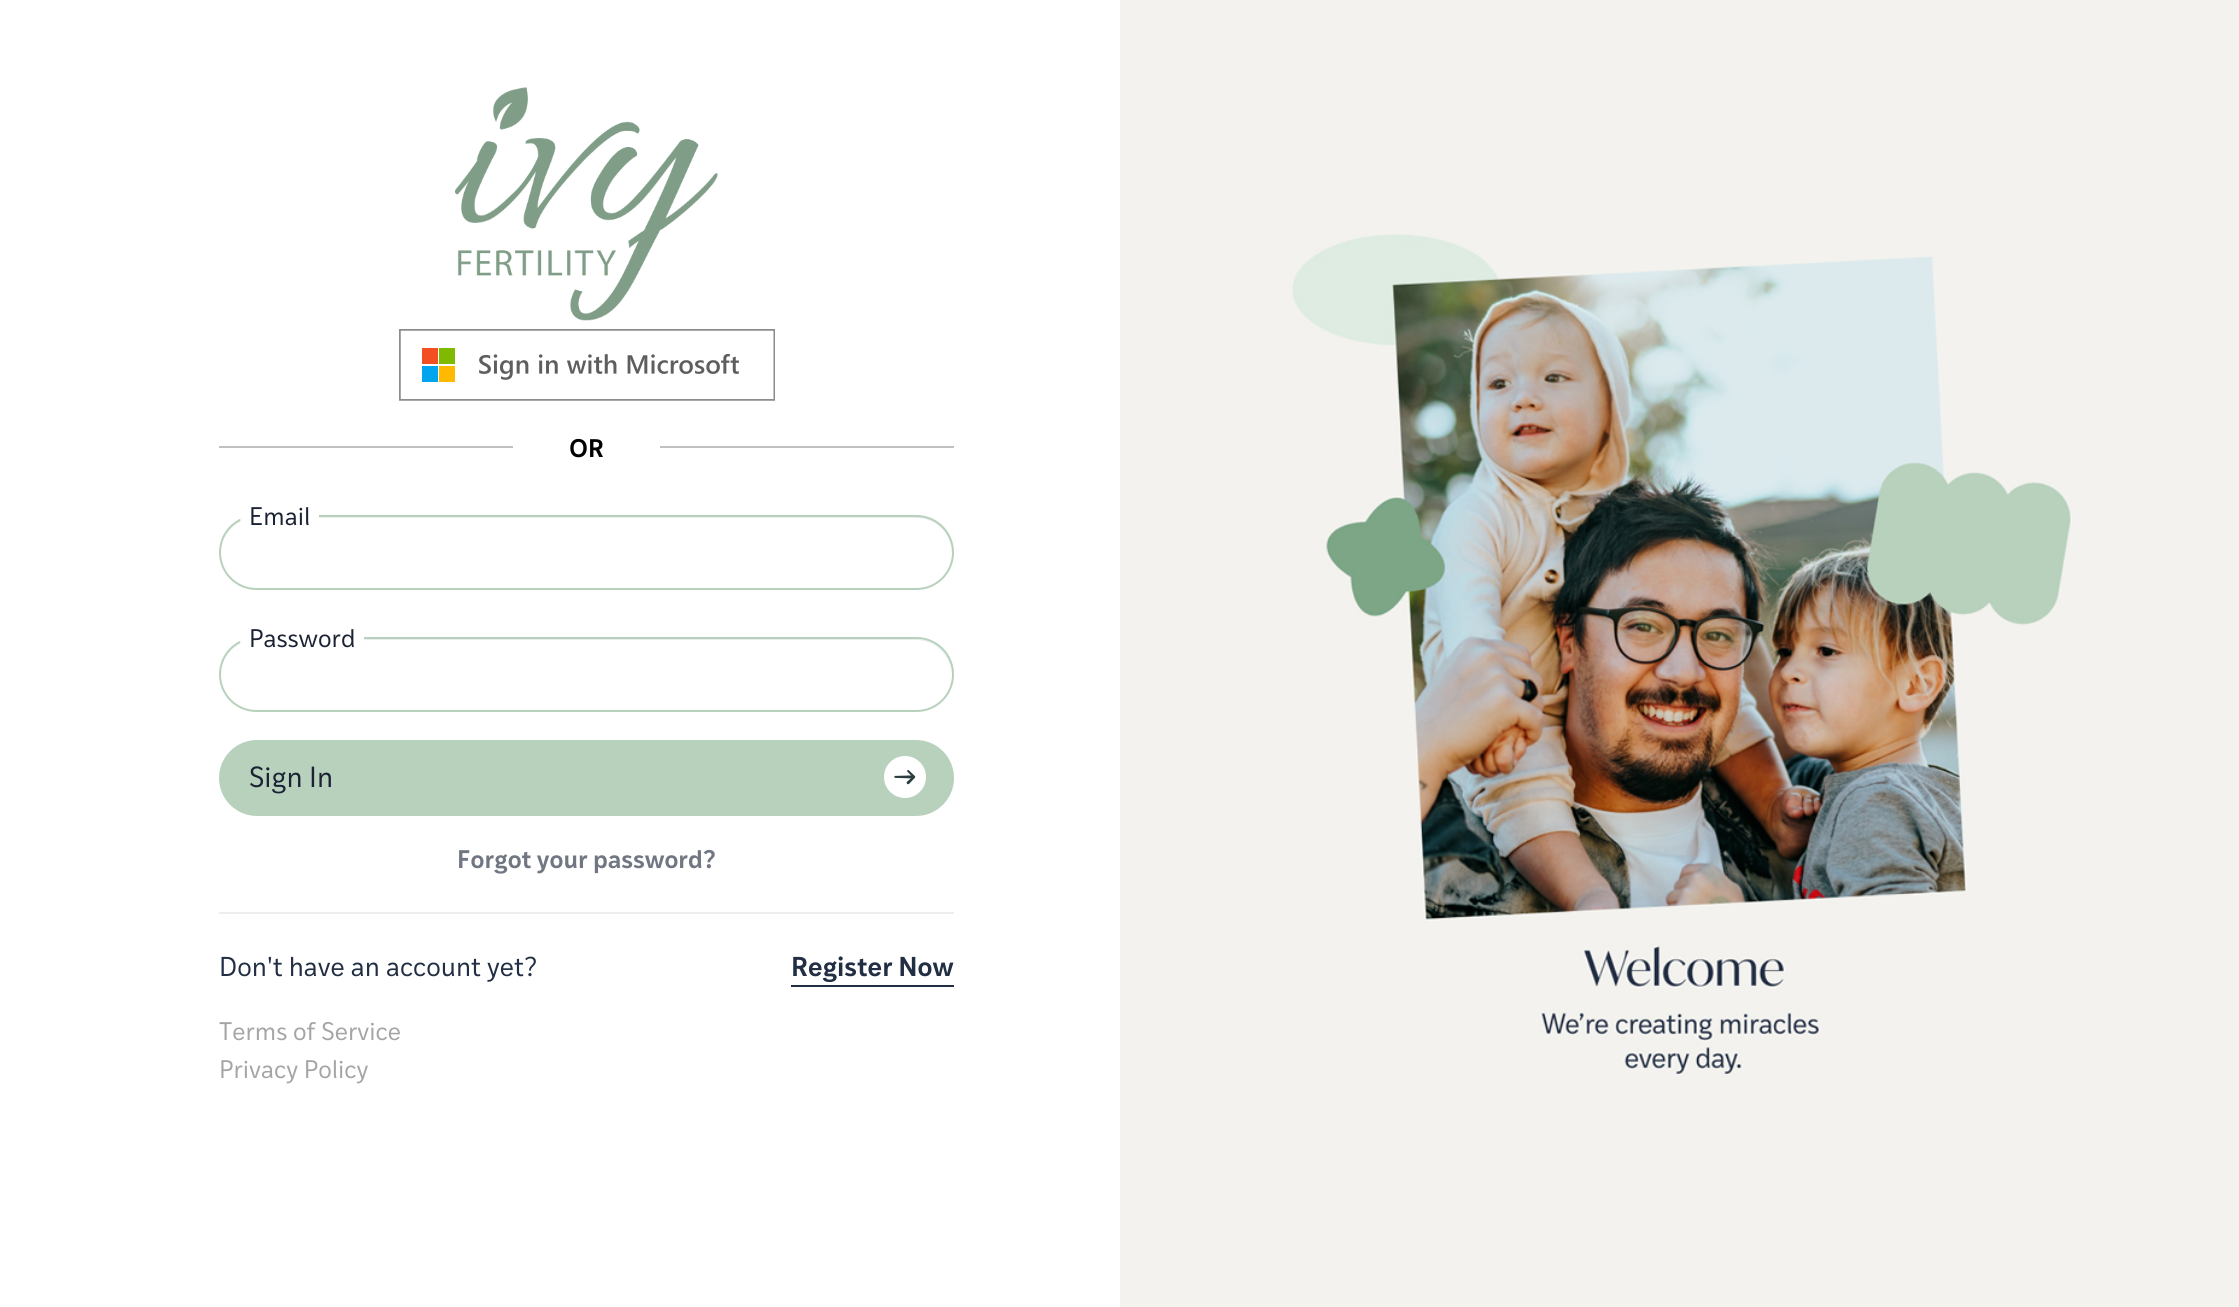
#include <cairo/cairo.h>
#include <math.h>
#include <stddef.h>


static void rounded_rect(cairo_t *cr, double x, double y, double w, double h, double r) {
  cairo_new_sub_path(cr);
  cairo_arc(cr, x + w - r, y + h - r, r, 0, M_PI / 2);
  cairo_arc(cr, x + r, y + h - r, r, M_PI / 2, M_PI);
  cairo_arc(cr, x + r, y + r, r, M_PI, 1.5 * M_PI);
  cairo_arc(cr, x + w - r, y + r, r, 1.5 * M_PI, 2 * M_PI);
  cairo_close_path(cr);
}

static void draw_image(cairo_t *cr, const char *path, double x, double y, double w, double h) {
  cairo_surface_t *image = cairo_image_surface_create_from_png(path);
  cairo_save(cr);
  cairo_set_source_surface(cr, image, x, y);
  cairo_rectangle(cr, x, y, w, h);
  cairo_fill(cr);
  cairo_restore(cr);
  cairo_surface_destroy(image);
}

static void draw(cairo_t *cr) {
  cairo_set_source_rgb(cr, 1, 1, 1);
  cairo_paint(cr);
  draw_image(cr, "images/1.png", 455, 87, 263, 234);
  draw_image(cr, "images/2.png", 399, 329, 376, 72);
  cairo_set_source_rgb(cr, 192 / 255.0, 192 / 255.0, 192 / 255.0);
  cairo_rectangle(cr, 219, 446, 294, 2);
  cairo_fill(cr);
  cairo_rectangle(cr, 660, 446, 294, 2);
  cairo_fill(cr);
  cairo_set_source_rgb(cr, 236 / 255.0, 236 / 255.0, 236 / 255.0);
  cairo_new_path(cr);
  cairo_move_to(cr, 256, 518);
  cairo_line_to(cr, 916, 518);
  cairo_curve_to(cr, 936, 518, 951, 533, 952, 553);
  cairo_line_to(cr, 952, 552);
  cairo_curve_to(cr, 952, 532, 936, 516, 916, 516);
  cairo_line_to(cr, 257, 516);
  cairo_curve_to(cr, 242, 516, 229, 525, 224, 539);
  cairo_curve_to(cr, 230, 526, 242, 518, 256, 518);
  cairo_close_path(cr);
  cairo_fill(cr);
  rounded_rect(cr, 220, 516, 733, 73, 36.5);
  cairo_set_source_rgb(cr, 183 / 255.0, 209 / 255.0, 189 / 255.0);
  cairo_stroke(cr);
  cairo_set_source_rgb(cr, 1, 1, 1);
  rounded_rect(cr, 240, 495, 79, 42, 21);
  cairo_fill(cr);
  cairo_set_source_rgb(cr, 236 / 255.0, 236 / 255.0, 236 / 255.0);
  cairo_new_path(cr);
  cairo_move_to(cr, 256, 640);
  cairo_line_to(cr, 916, 640);
  cairo_curve_to(cr, 936, 640, 952, 657, 952, 676);
  cairo_line_to(cr, 952, 675);
  cairo_curve_to(cr, 952, 655, 936, 639, 916, 639);
  cairo_line_to(cr, 257, 639);
  cairo_curve_to(cr, 243, 639, 231, 647, 225, 658);
  cairo_curve_to(cr, 232, 647, 243, 640, 256, 640);
  cairo_close_path(cr);
  cairo_fill(cr);
  rounded_rect(cr, 220, 638, 733, 73, 36.5);
  cairo_set_source_rgb(cr, 183 / 255.0, 209 / 255.0, 189 / 255.0);
  cairo_stroke(cr);
  cairo_set_source_rgb(cr, 1, 1, 1);
  rounded_rect(cr, 240, 618, 124, 42, 21);
  cairo_fill(cr);
  cairo_set_source_rgb(cr, 183 / 255.0, 209 / 255.0, 189 / 255.0);
  rounded_rect(cr, 219, 740, 735, 76, 38);
  cairo_fill(cr);
  draw_image(cr, "images/3.png", 884, 756, 42, 42);
  cairo_set_source_rgb(cr, 238 / 255.0, 238 / 255.0, 238 / 255.0);
  cairo_rectangle(cr, 219, 912, 735, 2);
  cairo_fill(cr);
  cairo_set_source_rgb(cr, 34 / 255.0, 46 / 255.0, 67 / 255.0);
  cairo_rectangle(cr, 791, 985, 163, 2);
  cairo_fill(cr);
  cairo_set_source_rgb(cr, 243 / 255.0, 242 / 255.0, 239 / 255.0);
  cairo_rectangle(cr, 1120, 0, 1119, 1307);
  cairo_fill(cr);
  draw_image(cr, "images/4.png", 1292, 234, 780, 841);
  cairo_select_font_face(cr, "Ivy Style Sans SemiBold", CAIRO_FONT_SLANT_NORMAL, CAIRO_FONT_WEIGHT_NORMAL);
  cairo_set_font_size(cr, 24.5);
  cairo_set_source_rgb(cr, 0, 0, 0);
  cairo_move_to(cr, 569, 457);
  cairo_show_text(cr, "OR");
  cairo_select_font_face(cr, "Ivy Style Sans", CAIRO_FONT_SLANT_NORMAL, CAIRO_FONT_WEIGHT_NORMAL);
  cairo_set_source_rgb(cr, 26 / 255.0, 34 / 255.0, 51 / 255.0);
  cairo_move_to(cr, 249, 525);
  cairo_show_text(cr, "Email");
  cairo_move_to(cr, 249, 647);
  cairo_show_text(cr, "Password");
  cairo_set_font_size(cr, 28);
  cairo_move_to(cr, 249, 787);
  cairo_show_text(cr, "Sign In");
  cairo_select_font_face(cr, "Ivy Style Sans SemiBold", CAIRO_FONT_SLANT_NORMAL, CAIRO_FONT_WEIGHT_NORMAL);
  cairo_set_font_size(cr, 24.5);
  cairo_set_source_rgb(cr, 113 / 255.0, 119 / 255.0, 130 / 255.0);
  cairo_move_to(cr, 457, 868);
  cairo_show_text(cr, "Forgot your password?");
  cairo_select_font_face(cr, "Ivy Style Sans", CAIRO_FONT_SLANT_NORMAL, CAIRO_FONT_WEIGHT_NORMAL);
  cairo_set_font_size(cr, 26.25);
  cairo_set_source_rgb(cr, 34 / 255.0, 46 / 255.0, 67 / 255.0);
  cairo_move_to(cr, 219, 976);
  cairo_show_text(cr, "Don't have an account yet?");
  cairo_select_font_face(cr, "Ivy Style Sans SemiBold", CAIRO_FONT_SLANT_NORMAL, CAIRO_FONT_WEIGHT_NORMAL);
  cairo_move_to(cr, 791, 976);
  cairo_show_text(cr, "Register Now");
  cairo_select_font_face(cr, "Ivy Style Sans", CAIRO_FONT_SLANT_NORMAL, CAIRO_FONT_WEIGHT_NORMAL);
  cairo_set_font_size(cr, 24.5);
  cairo_set_source_rgb(cr, 165 / 255.0, 165 / 255.0, 165 / 255.0);
  cairo_move_to(cr, 219, 1040);
  cairo_show_text(cr, "Terms of Service");
  cairo_move_to(cr, 219, 1078);
  cairo_show_text(cr, "Privacy Policy");
}

int main(void) {
  cairo_surface_t *surface = cairo_image_surface_create(CAIRO_FORMAT_RGB24, 2239, 1307);
  cairo_t *cr = cairo_create(surface);
  cairo_font_options_t *options = cairo_font_options_create();
  cairo_font_options_set_hint_metrics(options, CAIRO_HINT_METRICS_OFF);
  cairo_font_options_set_hint_style(options, CAIRO_HINT_STYLE_NONE);
  cairo_set_font_options(cr, options);
  cairo_set_miter_limit(cr, 4);
  draw(cr);
  cairo_surface_write_to_png(surface, "out.png");
  cairo_font_options_destroy(options);
  cairo_destroy(cr);
  cairo_surface_destroy(surface);
  return 0;
}
